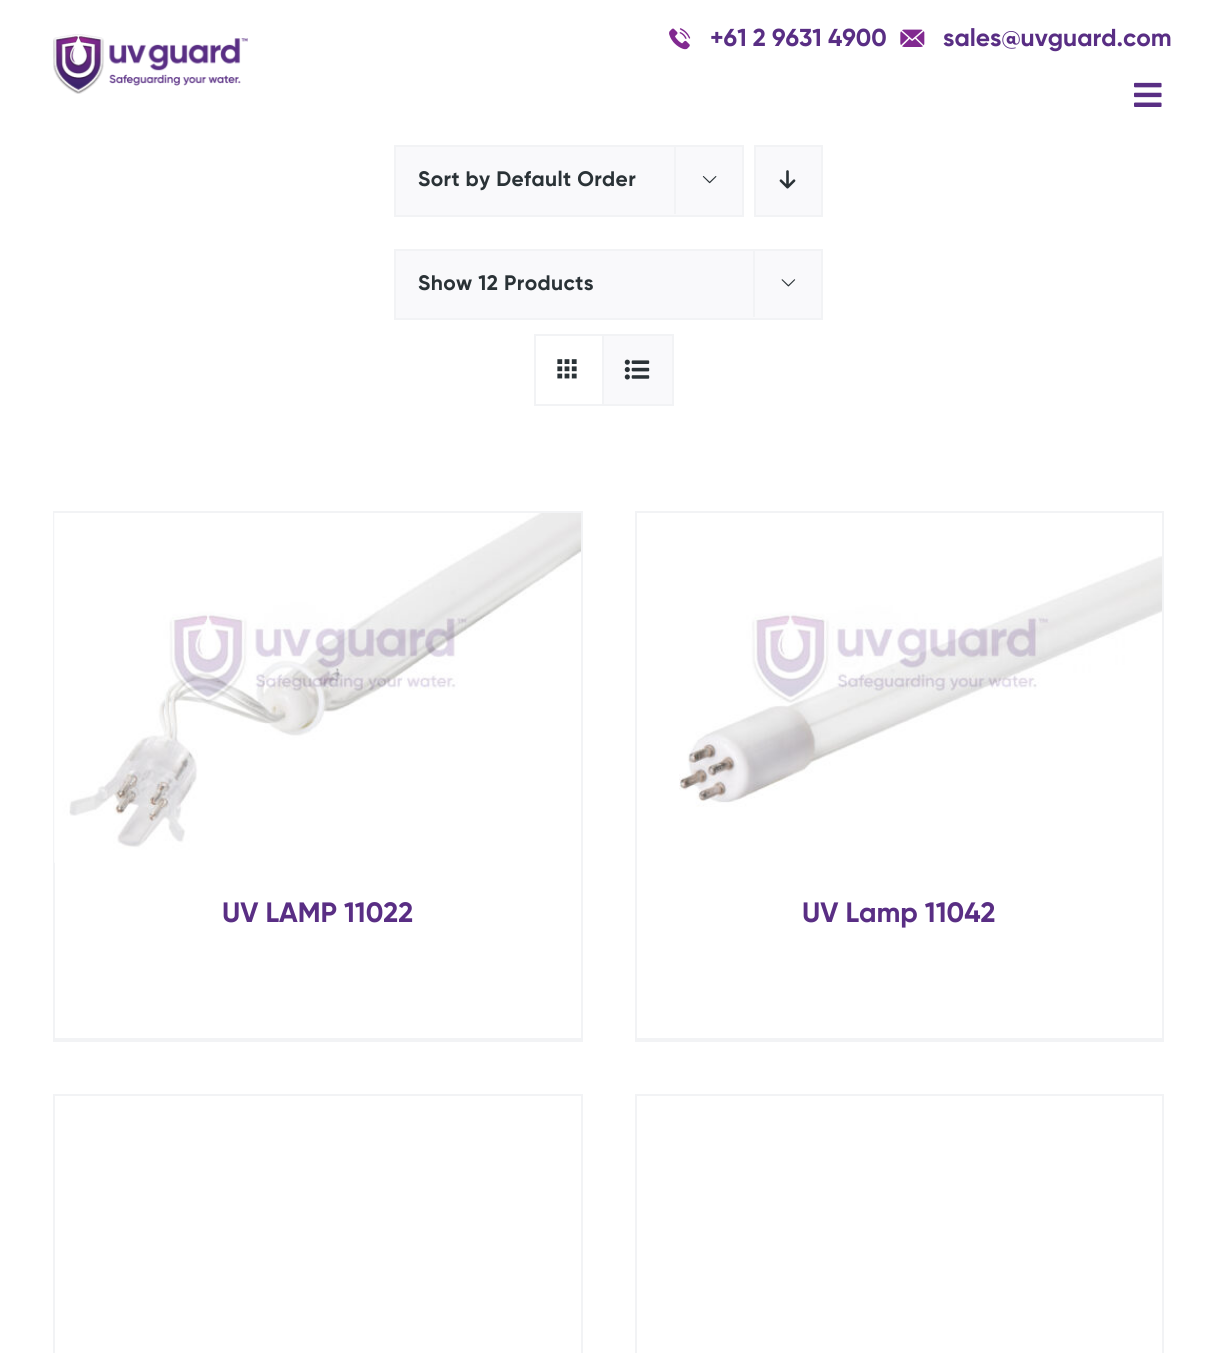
#include <cairo/cairo.h>
#include <math.h>
#include <stddef.h>


static void draw_spaced(cairo_t *cr, double x, double y, const char *s, double letter, double word) {
  cairo_move_to(cr, x, y);
  while (*s) {
    char ch[5] = {0};
    int n = 0;
    do ch[n++] = *s++; while ((*s & 0xC0) == 0x80);
    cairo_show_text(cr, ch);
    cairo_rel_move_to(cr, letter + word * (*ch == ' '), 0);
  }
}

static void draw_image(cairo_t *cr, const char *path, double x, double y, double w, double h) {
  cairo_surface_t *image = cairo_image_surface_create_from_png(path);
  cairo_save(cr);
  cairo_set_source_surface(cr, image, x, y);
  cairo_rectangle(cr, x, y, w, h);
  cairo_fill(cr);
  cairo_restore(cr);
  cairo_surface_destroy(image);
}

static void draw(cairo_t *cr) {
  cairo_set_source_rgb(cr, 1, 1, 1);
  cairo_paint(cr);
  draw_image(cr, "images/1.png", 53, 34, 195, 60);
  draw_image(cr, "images/2.png", 669, 28, 22, 22);
  draw_image(cr, "images/3.png", 900, 29, 25, 18);
  draw_image(cr, "images/4.png", 1134, 82, 28, 25);
  cairo_set_source_rgb(cr, 249 / 255.0, 249 / 255.0, 251 / 255.0);
  cairo_rectangle(cr, 395, 146, 348, 70);
  cairo_fill_preserve(cr);
  cairo_set_source_rgb(cr, 242 / 255.0, 243 / 255.0, 245 / 255.0);
  cairo_stroke(cr);
  cairo_rectangle(cr, 674, 145, 2, 69);
  cairo_fill(cr);
  draw_image(cr, "images/5.png", 702, 176, 15, 8);
  cairo_set_source_rgb(cr, 249 / 255.0, 249 / 255.0, 251 / 255.0);
  cairo_rectangle(cr, 755, 146, 67, 70);
  cairo_fill_preserve(cr);
  cairo_set_source_rgb(cr, 242 / 255.0, 243 / 255.0, 245 / 255.0);
  cairo_stroke(cr);
  draw_image(cr, "images/6.png", 779, 170, 17, 19);
  cairo_set_source_rgb(cr, 249 / 255.0, 249 / 255.0, 251 / 255.0);
  cairo_rectangle(cr, 395, 250, 427, 69);
  cairo_fill_preserve(cr);
  cairo_set_source_rgb(cr, 242 / 255.0, 243 / 255.0, 245 / 255.0);
  cairo_stroke(cr);
  cairo_rectangle(cr, 753, 249, 2, 68);
  cairo_fill(cr);
  draw_image(cr, "images/7.png", 781, 279, 15, 8);
  cairo_rectangle(cr, 535, 335, 138, 70);
  cairo_stroke(cr);
  cairo_rectangle(cr, 602, 336, 2, 68);
  cairo_fill(cr);
  draw_image(cr, "images/8.png", 557, 359, 20, 20);
  cairo_set_source_rgb(cr, 249 / 255.0, 249 / 255.0, 251 / 255.0);
  cairo_rectangle(cr, 604, 336, 68, 68);
  cairo_fill(cr);
  draw_image(cr, "images/9.png", 624, 359, 26, 21);
  cairo_set_source_rgb(cr, 242 / 255.0, 243 / 255.0, 245 / 255.0);
  cairo_rectangle(cr, 53, 511, 530, 2);
  cairo_fill(cr);
  cairo_rectangle(cr, 581, 511, 2, 530);
  cairo_fill(cr);
  cairo_rectangle(cr, 53, 1038, 530, 4);
  cairo_fill(cr);
  cairo_rectangle(cr, 53, 511, 2, 530);
  cairo_fill(cr);
  draw_image(cr, "images/10.png", 54, 513, 527, 350);
  cairo_rectangle(cr, 635, 511, 529, 2);
  cairo_fill(cr);
  cairo_rectangle(cr, 1162, 511, 2, 530);
  cairo_fill(cr);
  cairo_rectangle(cr, 635, 1038, 529, 4);
  cairo_fill(cr);
  cairo_rectangle(cr, 635, 511, 2, 530);
  cairo_fill(cr);
  draw_image(cr, "images/11.png", 679, 556, 483, 251);
  cairo_rectangle(cr, 53, 1094, 530, 2);
  cairo_fill(cr);
  cairo_rectangle(cr, 581, 1094, 2, 259);
  cairo_fill(cr);
  cairo_rectangle(cr, 53, 1094, 2, 259);
  cairo_fill(cr);
  cairo_rectangle(cr, 635, 1094, 529, 2);
  cairo_fill(cr);
  cairo_rectangle(cr, 1162, 1094, 2, 259);
  cairo_fill(cr);
  cairo_rectangle(cr, 635, 1094, 2, 259);
  cairo_fill(cr);
  cairo_select_font_face(cr, "Gilroy", CAIRO_FONT_SLANT_NORMAL, CAIRO_FONT_WEIGHT_BOLD);
  cairo_set_font_size(cr, 24.5);
  cairo_set_source_rgb(cr, 89 / 255.0, 46 / 255.0, 132 / 255.0);
  cairo_move_to(cr, 710, 46);
  cairo_show_text(cr, "+61 2 9631 4900");
  cairo_move_to(cr, 943, 46);
  cairo_show_text(cr, "sales@uvguard.com");
  cairo_set_font_size(cr, 21);
  cairo_set_source_rgb(cr, 42 / 255.0, 50 / 255.0, 54 / 255.0);
  draw_spaced(cr, 418, 186, "Sort by Default Order", 0.4, 0);
  draw_spaced(cr, 418, 290, "Show 12 Products", 0.4, 0);
  cairo_set_font_size(cr, 28);
  cairo_set_source_rgb(cr, 89 / 255.0, 46 / 255.0, 132 / 255.0);
  cairo_move_to(cr, 222, 922);
  cairo_show_text(cr, "UV LAMP 11022");
  cairo_move_to(cr, 802, 922);
  cairo_show_text(cr, "UV Lamp 11042");
}

int main(void) {
  cairo_surface_t *surface = cairo_image_surface_create(CAIRO_FORMAT_RGB24, 1216, 1353);
  cairo_t *cr = cairo_create(surface);
  cairo_font_options_t *options = cairo_font_options_create();
  cairo_font_options_set_hint_metrics(options, CAIRO_HINT_METRICS_OFF);
  cairo_font_options_set_hint_style(options, CAIRO_HINT_STYLE_NONE);
  cairo_set_font_options(cr, options);
  cairo_set_miter_limit(cr, 4);
  draw(cr);
  cairo_surface_write_to_png(surface, "out.png");
  cairo_font_options_destroy(options);
  cairo_destroy(cr);
  cairo_surface_destroy(surface);
  return 0;
}
